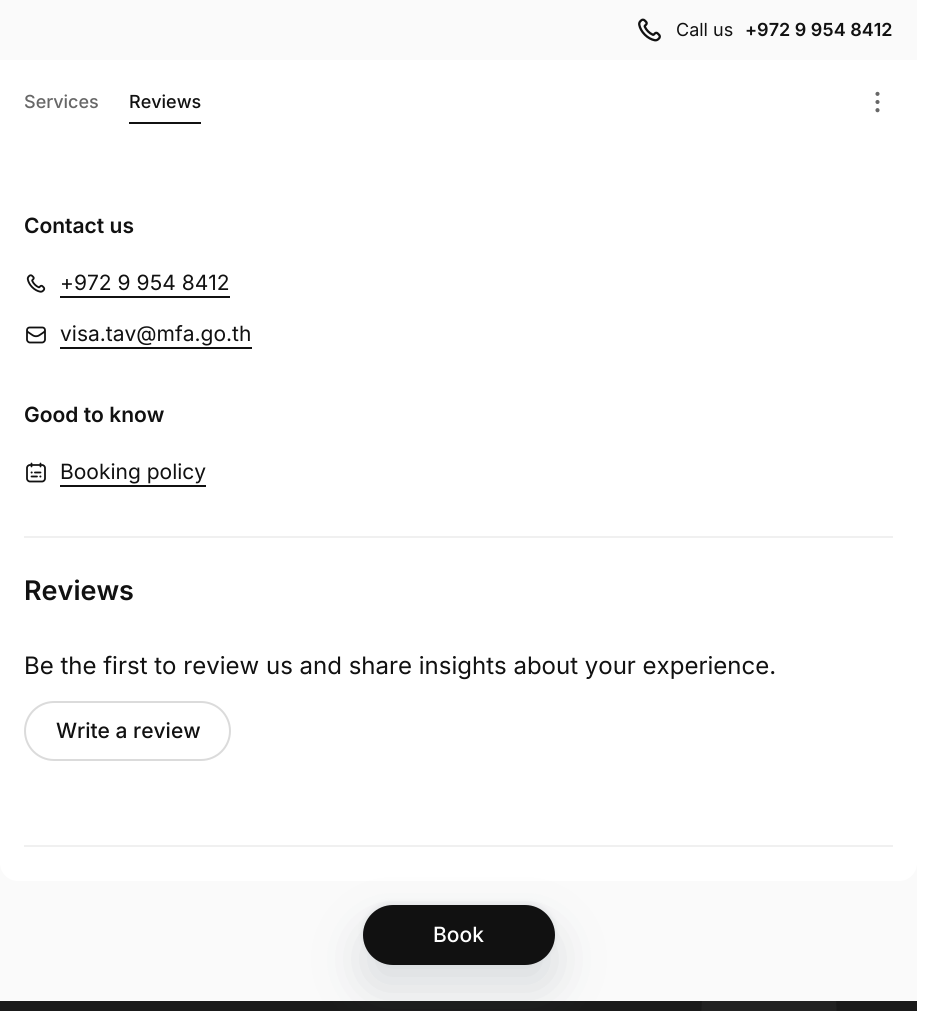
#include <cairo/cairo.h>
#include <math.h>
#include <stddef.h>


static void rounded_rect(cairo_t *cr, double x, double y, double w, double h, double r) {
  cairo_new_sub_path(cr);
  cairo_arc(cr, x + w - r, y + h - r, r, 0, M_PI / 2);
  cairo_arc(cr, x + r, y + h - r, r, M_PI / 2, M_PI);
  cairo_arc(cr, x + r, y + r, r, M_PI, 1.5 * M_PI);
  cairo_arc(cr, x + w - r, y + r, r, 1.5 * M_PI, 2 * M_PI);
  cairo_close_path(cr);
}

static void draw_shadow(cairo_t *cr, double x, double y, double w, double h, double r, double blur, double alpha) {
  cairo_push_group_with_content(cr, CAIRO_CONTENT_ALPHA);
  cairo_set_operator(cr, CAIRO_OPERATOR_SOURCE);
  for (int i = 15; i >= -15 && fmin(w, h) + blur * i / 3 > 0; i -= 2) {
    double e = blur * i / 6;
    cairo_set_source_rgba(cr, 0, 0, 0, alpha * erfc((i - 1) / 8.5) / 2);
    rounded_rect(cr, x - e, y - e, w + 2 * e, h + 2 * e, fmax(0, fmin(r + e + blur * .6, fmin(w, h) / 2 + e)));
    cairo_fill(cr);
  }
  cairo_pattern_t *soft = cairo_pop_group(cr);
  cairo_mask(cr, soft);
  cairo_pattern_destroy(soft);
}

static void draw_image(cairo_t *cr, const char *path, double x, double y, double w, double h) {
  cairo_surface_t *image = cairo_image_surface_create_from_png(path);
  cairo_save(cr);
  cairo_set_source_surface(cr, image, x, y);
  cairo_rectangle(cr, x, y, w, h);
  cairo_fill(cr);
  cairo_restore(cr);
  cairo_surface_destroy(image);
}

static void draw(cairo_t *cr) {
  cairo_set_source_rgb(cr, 1, 1, 1);
  cairo_paint(cr);
  cairo_set_source_rgb(cr, 250 / 255.0, 250 / 255.0, 250 / 255.0);
  cairo_rectangle(cr, 0, 863, 917, 138);
  cairo_fill(cr);
  cairo_set_source_rgb(cr, 1, 1, 1);
  rounded_rect(cr, 0, -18, 917, 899, 18);
  cairo_fill(cr);
  cairo_set_source_rgb(cr, 250 / 255.0, 250 / 255.0, 250 / 255.0);
  cairo_rectangle(cr, 0, 0, 917, 60);
  cairo_fill(cr);
  draw_image(cr, "images/1.png", 638, 18, 23, 24);
  cairo_set_source_rgb(cr, 17 / 255.0, 17 / 255.0, 17 / 255.0);
  cairo_rectangle(cr, 129, 122, 72, 2);
  cairo_fill(cr);
  draw_image(cr, "images/2.png", 875, 91, 5, 22);
  draw_image(cr, "images/3.png", 26, 274, 20, 19);
  cairo_rectangle(cr, 60, 296, 170, 2);
  cairo_fill(cr);
  draw_image(cr, "images/4.png", 26, 326, 20, 18);
  cairo_rectangle(cr, 60, 347, 192, 2);
  cairo_fill(cr);
  draw_image(cr, "images/5.png", 26, 462, 20, 21);
  cairo_rectangle(cr, 60, 485, 146, 2);
  cairo_fill(cr);
  cairo_set_source_rgb(cr, 240 / 255.0, 240 / 255.0, 240 / 255.0);
  cairo_rectangle(cr, 24, 536, 869, 2);
  cairo_fill(cr);
  rounded_rect(cr, 25, 702, 205, 58, 29);
  cairo_set_source_rgb(cr, 219 / 255.0, 219 / 255.0, 219 / 255.0);
  cairo_stroke(cr);
  cairo_set_source_rgb(cr, 240 / 255.0, 240 / 255.0, 240 / 255.0);
  cairo_rectangle(cr, 24, 845, 869, 2);
  cairo_fill(cr);
  cairo_set_source_rgb(cr, 26 / 255.0, 26 / 255.0, 26 / 255.0);
  cairo_rectangle(cr, 0, 1001, 917, 10);
  cairo_fill(cr);
  cairo_set_source_rgb(cr, 88 / 255.0, 104 / 255.0, 116 / 255.0);
  draw_shadow(cr, 363, 929, 192, 60, 30, 24, 0.2);
  draw_shadow(cr, 363, 903, 192, 60, 30, 3, 0.12);
  cairo_set_source_rgb(cr, 17 / 255.0, 17 / 255.0, 17 / 255.0);
  rounded_rect(cr, 363, 905, 192, 60, 30);
  cairo_fill(cr);
  cairo_save(cr);
  cairo_rectangle(cr, 432, 1001, 485, 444);
  cairo_clip(cr);
  cairo_set_source_rgb(cr, 34 / 255.0, 34 / 255.0, 34 / 255.0);
  cairo_new_path(cr);
  cairo_move_to(cr, 702, 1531);
  cairo_line_to(cr, 702, 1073);
  cairo_line_to(cr, 700, 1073);
  cairo_curve_to(cr, 700, 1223, 612, 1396, 432, 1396);
  cairo_line_to(cr, 432, 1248);
  cairo_curve_to(cr, 654, 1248, 702, 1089, 702, 992);
  cairo_line_to(cr, 836, 992);
  cairo_curve_to(cr, 836, 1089, 884, 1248, 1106, 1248);
  cairo_line_to(cr, 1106, 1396);
  cairo_curve_to(cr, 925, 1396, 838, 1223, 838, 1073);
  cairo_line_to(cr, 836, 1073);
  cairo_line_to(cr, 836, 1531);
  cairo_close_path(cr);
  cairo_fill(cr);
  cairo_restore(cr);
  cairo_select_font_face(cr, "Inter", CAIRO_FONT_SLANT_NORMAL, CAIRO_FONT_WEIGHT_NORMAL);
  cairo_set_font_size(cr, 18);
  cairo_move_to(cr, 676, 36);
  cairo_show_text(cr, "Call us");
  cairo_select_font_face(cr, "Inter SemiBold", CAIRO_FONT_SLANT_NORMAL, CAIRO_FONT_WEIGHT_NORMAL);
  cairo_move_to(cr, 745, 36);
  cairo_show_text(cr, "+972 9 954 8412");
  cairo_select_font_face(cr, "Inter Medium", CAIRO_FONT_SLANT_NORMAL, CAIRO_FONT_WEIGHT_NORMAL);
  cairo_set_source_rgb(cr, 103 / 255.0, 103 / 255.0, 103 / 255.0);
  cairo_move_to(cr, 24, 108);
  cairo_show_text(cr, "Services");
  cairo_set_source_rgb(cr, 17 / 255.0, 17 / 255.0, 17 / 255.0);
  cairo_move_to(cr, 129, 108);
  cairo_show_text(cr, "Reviews");
  cairo_select_font_face(cr, "Inter SemiBold", CAIRO_FONT_SLANT_NORMAL, CAIRO_FONT_WEIGHT_NORMAL);
  cairo_set_font_size(cr, 21);
  cairo_move_to(cr, 24, 233);
  cairo_show_text(cr, "Contact us");
  cairo_select_font_face(cr, "Inter", CAIRO_FONT_SLANT_NORMAL, CAIRO_FONT_WEIGHT_NORMAL);
  cairo_move_to(cr, 60, 290);
  cairo_show_text(cr, "+972 9 954 8412");
  cairo_move_to(cr, 60, 341);
  cairo_show_text(cr, "visa.tav@mfa.go.th");
  cairo_select_font_face(cr, "Inter SemiBold", CAIRO_FONT_SLANT_NORMAL, CAIRO_FONT_WEIGHT_NORMAL);
  cairo_move_to(cr, 24, 422);
  cairo_show_text(cr, "Good to know");
  cairo_select_font_face(cr, "Inter", CAIRO_FONT_SLANT_NORMAL, CAIRO_FONT_WEIGHT_NORMAL);
  cairo_move_to(cr, 60, 479);
  cairo_show_text(cr, "Booking policy");
  cairo_select_font_face(cr, "Inter SemiBold", CAIRO_FONT_SLANT_NORMAL, CAIRO_FONT_WEIGHT_NORMAL);
  cairo_set_font_size(cr, 27);
  cairo_move_to(cr, 24, 600);
  cairo_show_text(cr, "Reviews");
  cairo_select_font_face(cr, "Inter", CAIRO_FONT_SLANT_NORMAL, CAIRO_FONT_WEIGHT_NORMAL);
  cairo_set_font_size(cr, 24);
  cairo_move_to(cr, 24, 674);
  cairo_show_text(cr, "Be the first to review us and share insights about your experience.");
  cairo_select_font_face(cr, "Inter Medium", CAIRO_FONT_SLANT_NORMAL, CAIRO_FONT_WEIGHT_NORMAL);
  cairo_set_font_size(cr, 21);
  cairo_move_to(cr, 56, 738);
  cairo_show_text(cr, "Write a review");
  cairo_set_source_rgb(cr, 1, 1, 1);
  cairo_move_to(cr, 433, 942);
  cairo_show_text(cr, "Book");
}

int main(void) {
  cairo_surface_t *surface = cairo_image_surface_create(CAIRO_FORMAT_RGB24, 938, 1011);
  cairo_t *cr = cairo_create(surface);
  cairo_font_options_t *options = cairo_font_options_create();
  cairo_font_options_set_hint_metrics(options, CAIRO_HINT_METRICS_OFF);
  cairo_font_options_set_hint_style(options, CAIRO_HINT_STYLE_NONE);
  cairo_set_font_options(cr, options);
  cairo_set_miter_limit(cr, 4);
  draw(cr);
  cairo_surface_write_to_png(surface, "out.png");
  cairo_font_options_destroy(options);
  cairo_destroy(cr);
  cairo_surface_destroy(surface);
  return 0;
}
